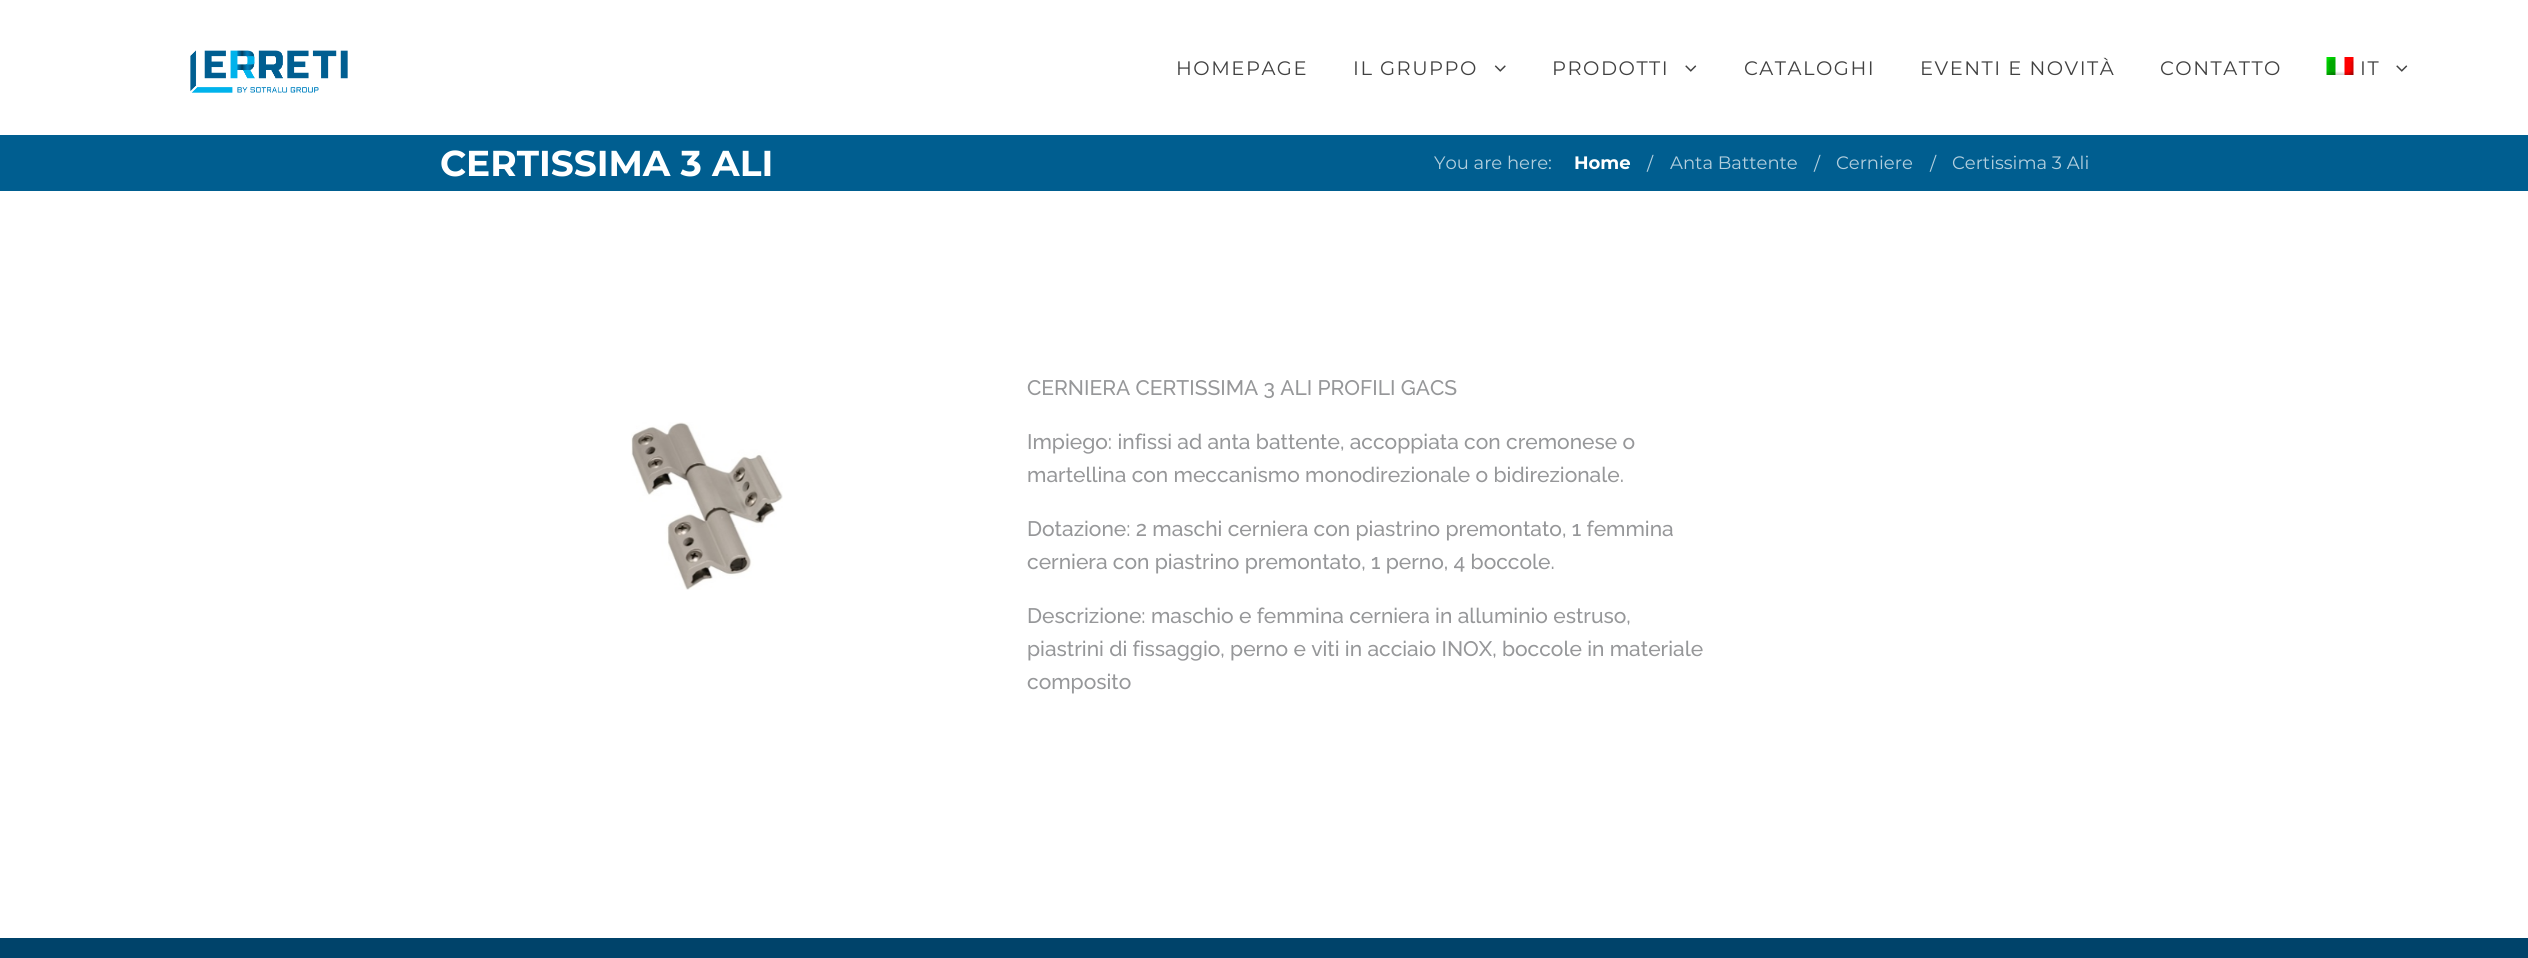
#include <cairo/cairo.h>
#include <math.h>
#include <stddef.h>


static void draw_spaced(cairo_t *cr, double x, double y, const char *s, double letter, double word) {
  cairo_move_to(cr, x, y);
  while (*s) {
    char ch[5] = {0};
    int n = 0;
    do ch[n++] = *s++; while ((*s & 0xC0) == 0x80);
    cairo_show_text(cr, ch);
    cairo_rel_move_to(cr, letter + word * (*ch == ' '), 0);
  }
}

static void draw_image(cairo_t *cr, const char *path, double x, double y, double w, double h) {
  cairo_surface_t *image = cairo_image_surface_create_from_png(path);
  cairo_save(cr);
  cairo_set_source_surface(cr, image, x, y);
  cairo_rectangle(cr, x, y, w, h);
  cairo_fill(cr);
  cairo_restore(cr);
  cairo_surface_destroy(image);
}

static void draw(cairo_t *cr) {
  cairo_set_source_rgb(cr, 1, 1, 1);
  cairo_paint(cr);
  draw_image(cr, "images/1.png", 190, 50, 158, 43);
  draw_image(cr, "images/2.png", 1494, 65, 12, 7);
  draw_image(cr, "images/3.png", 1685, 65, 12, 7);
  draw_image(cr, "images/4.png", 2326, 57, 28, 18);
  draw_image(cr, "images/3.png", 2396, 65, 12, 7);
  cairo_set_source_rgb(cr, 0, 94 / 255.0, 144 / 255.0);
  cairo_rectangle(cr, 0, 135, 2528, 56);
  cairo_fill(cr);
  draw_image(cr, "images/5.png", 631, 422, 152, 168);
  cairo_set_source_rgb(cr, 0, 67 / 255.0, 106 / 255.0);
  cairo_rectangle(cr, 0, 938, 2528, 20);
  cairo_fill(cr);
  cairo_select_font_face(cr, "Montserrat", CAIRO_FONT_SLANT_NORMAL, CAIRO_FONT_WEIGHT_NORMAL);
  cairo_set_font_size(cr, 19.5);
  cairo_set_source_rgb(cr, 65 / 255.0, 65 / 255.0, 65 / 255.0);
  draw_spaced(cr, 1176, 75, "HOMEPAGE", 1.5, 0);
  draw_spaced(cr, 1353, 75, "IL GRUPPO", 1.5, 0);
  draw_spaced(cr, 1552, 75, "PRODOTTI", 1.5, 0);
  draw_spaced(cr, 1744, 75, "CATALOGHI", 1.5, 0);
  draw_spaced(cr, 1920, 75, "EVENTI E NOVITÀ", 1.5, 0);
  draw_spaced(cr, 2160, 75, "CONTATTO", 1.5, 0);
  draw_spaced(cr, 2360, 75, "IT", 1.5, 0);
  cairo_select_font_face(cr, "Montserrat", CAIRO_FONT_SLANT_NORMAL, CAIRO_FONT_WEIGHT_BOLD);
  cairo_set_font_size(cr, 36);
  cairo_set_source_rgb(cr, 1, 1, 1);
  cairo_move_to(cr, 440, 176);
  cairo_show_text(cr, "CERTISSIMA 3 ALI");
  cairo_select_font_face(cr, "Montserrat", CAIRO_FONT_SLANT_NORMAL, CAIRO_FONT_WEIGHT_NORMAL);
  cairo_set_font_size(cr, 18);
  cairo_set_source_rgb(cr, 179 / 255.0, 207 / 255.0, 222 / 255.0);
  cairo_move_to(cr, 1434, 169);
  cairo_show_text(cr, "You are here:");
  cairo_select_font_face(cr, "Montserrat", CAIRO_FONT_SLANT_NORMAL, CAIRO_FONT_WEIGHT_BOLD);
  cairo_set_source_rgb(cr, 1, 1, 1);
  cairo_move_to(cr, 1574, 169);
  cairo_show_text(cr, "Home");
  cairo_select_font_face(cr, "Montserrat", CAIRO_FONT_SLANT_NORMAL, CAIRO_FONT_WEIGHT_NORMAL);
  cairo_set_source_rgb(cr, 179 / 255.0, 207 / 255.0, 222 / 255.0);
  cairo_move_to(cr, 1647, 170);
  cairo_show_text(cr, "/");
  cairo_move_to(cr, 1670, 169);
  cairo_show_text(cr, "Anta Battente");
  cairo_move_to(cr, 1814, 170);
  cairo_show_text(cr, "/");
  cairo_move_to(cr, 1836, 169);
  cairo_show_text(cr, "Cerniere");
  cairo_move_to(cr, 1930, 170);
  cairo_show_text(cr, "/");
  cairo_move_to(cr, 1952, 169);
  cairo_show_text(cr, "Certissima 3 Ali");
  cairo_select_font_face(cr, "Raleway Medium", CAIRO_FONT_SLANT_NORMAL, CAIRO_FONT_WEIGHT_NORMAL);
  cairo_set_font_size(cr, 21);
  cairo_set_source_rgb(cr, 150 / 255.0, 151 / 255.0, 153 / 255.0);
  cairo_move_to(cr, 1027, 395);
  cairo_show_text(cr, "CERNIERA CERTISSIMA 3 ALI PROFILI GACS");
  cairo_move_to(cr, 1027, 449);
  cairo_show_text(cr, "Impiego: infissi ad anta battente, accoppiata con cremonese o");
  cairo_move_to(cr, 1027, 482);
  cairo_show_text(cr, "martellina con meccanismo monodirezionale o bidirezionale.");
  cairo_move_to(cr, 1027, 536);
  cairo_show_text(cr, "Dotazione: 2 maschi cerniera con piastrino premontato, 1 femmina");
  cairo_move_to(cr, 1027, 569);
  cairo_show_text(cr, "cerniera con piastrino premontato, 1 perno, 4 boccole.");
  cairo_move_to(cr, 1027, 623);
  cairo_show_text(cr, "Descrizione: maschio e femmina cerniera in alluminio estruso,");
  cairo_move_to(cr, 1027, 656);
  cairo_show_text(cr, "piastrini di fissaggio, perno e viti in acciaio INOX, boccole in materiale");
  cairo_move_to(cr, 1027, 689);
  cairo_show_text(cr, "composito");
}

int main(void) {
  cairo_surface_t *surface = cairo_image_surface_create(CAIRO_FORMAT_RGB24, 2528, 958);
  cairo_t *cr = cairo_create(surface);
  cairo_font_options_t *options = cairo_font_options_create();
  cairo_font_options_set_hint_metrics(options, CAIRO_HINT_METRICS_OFF);
  cairo_font_options_set_hint_style(options, CAIRO_HINT_STYLE_NONE);
  cairo_set_font_options(cr, options);
  cairo_set_miter_limit(cr, 4);
  draw(cr);
  cairo_surface_write_to_png(surface, "out.png");
  cairo_font_options_destroy(options);
  cairo_destroy(cr);
  cairo_surface_destroy(surface);
  return 0;
}
